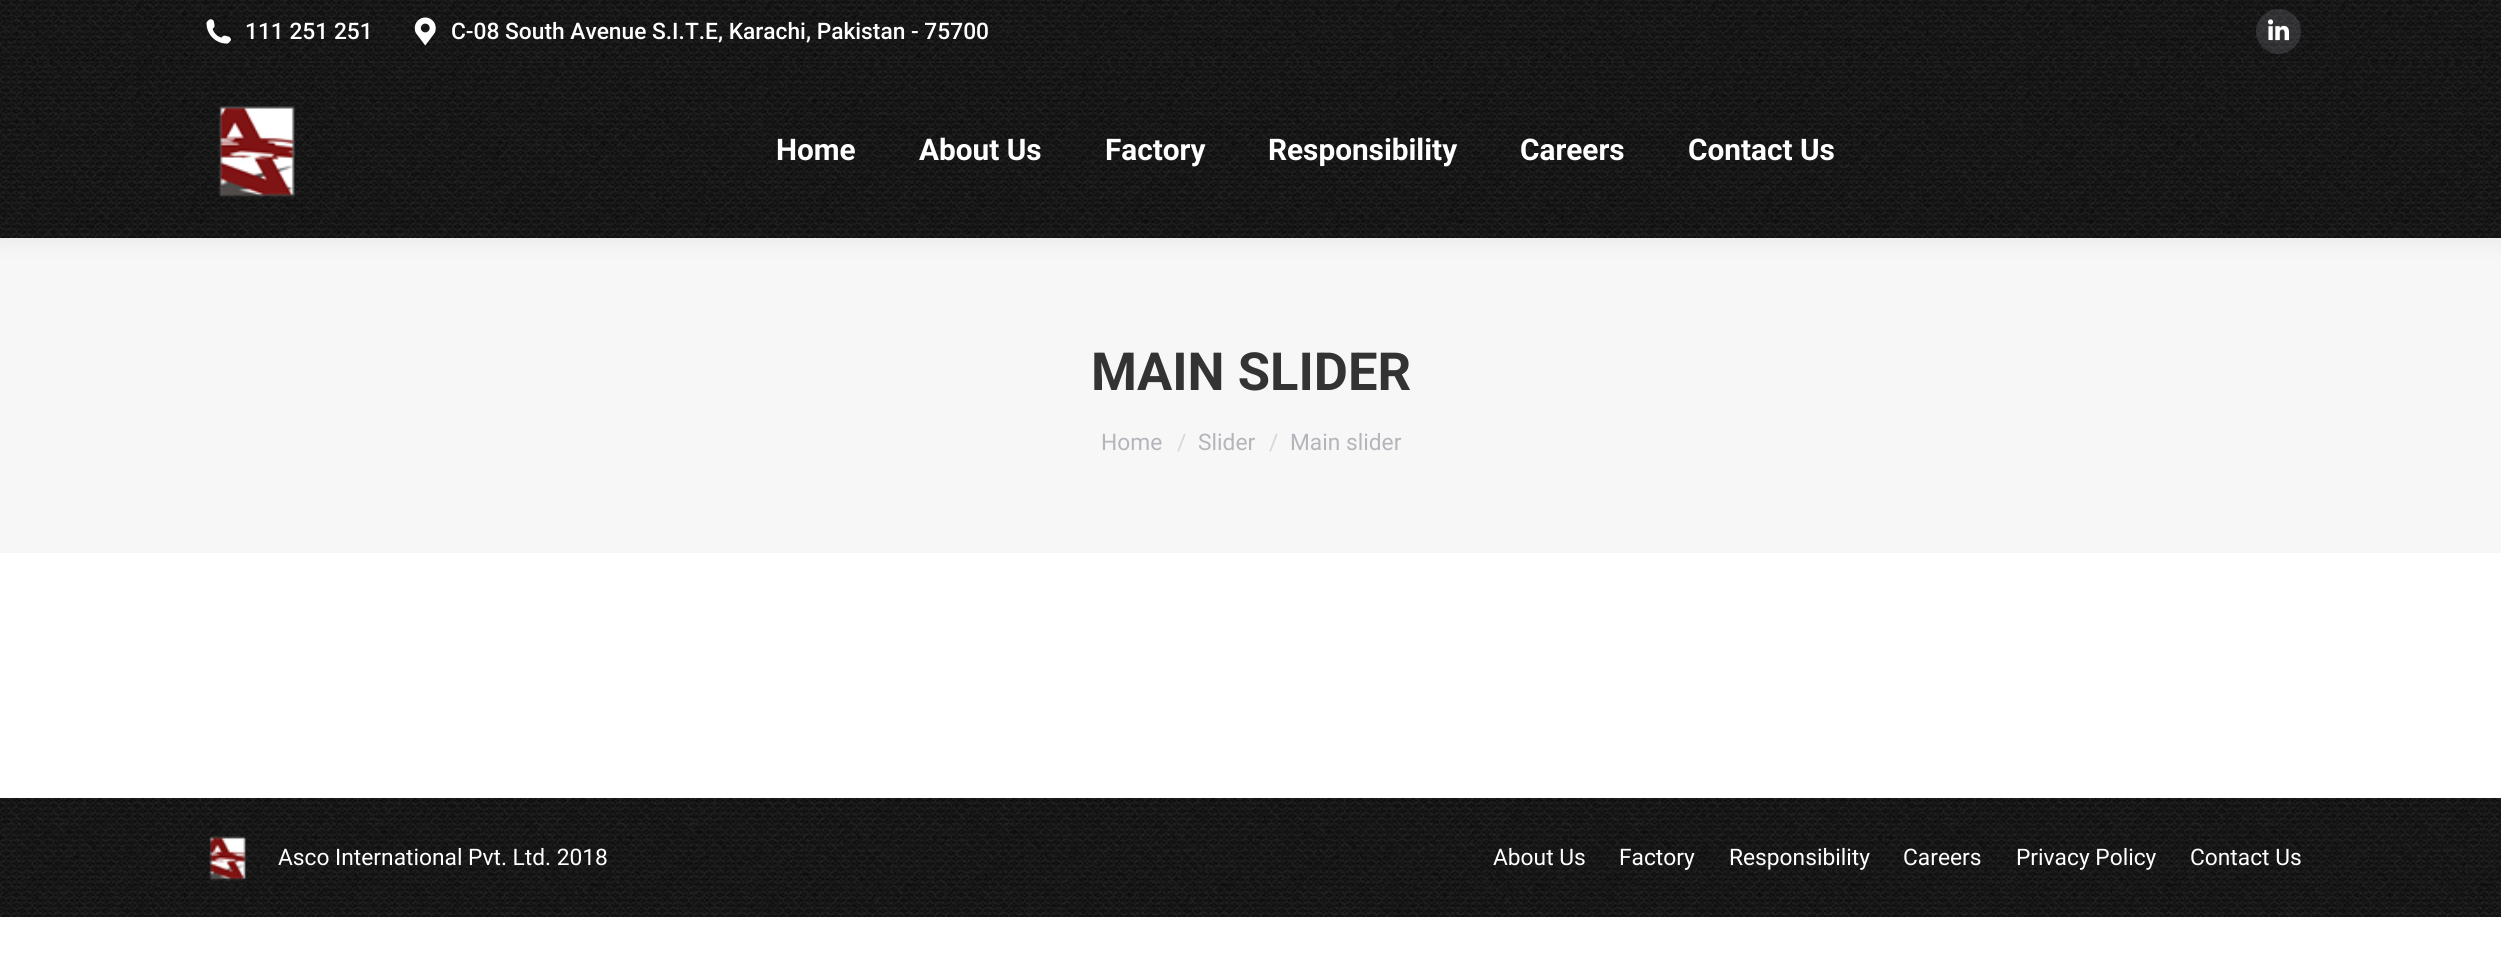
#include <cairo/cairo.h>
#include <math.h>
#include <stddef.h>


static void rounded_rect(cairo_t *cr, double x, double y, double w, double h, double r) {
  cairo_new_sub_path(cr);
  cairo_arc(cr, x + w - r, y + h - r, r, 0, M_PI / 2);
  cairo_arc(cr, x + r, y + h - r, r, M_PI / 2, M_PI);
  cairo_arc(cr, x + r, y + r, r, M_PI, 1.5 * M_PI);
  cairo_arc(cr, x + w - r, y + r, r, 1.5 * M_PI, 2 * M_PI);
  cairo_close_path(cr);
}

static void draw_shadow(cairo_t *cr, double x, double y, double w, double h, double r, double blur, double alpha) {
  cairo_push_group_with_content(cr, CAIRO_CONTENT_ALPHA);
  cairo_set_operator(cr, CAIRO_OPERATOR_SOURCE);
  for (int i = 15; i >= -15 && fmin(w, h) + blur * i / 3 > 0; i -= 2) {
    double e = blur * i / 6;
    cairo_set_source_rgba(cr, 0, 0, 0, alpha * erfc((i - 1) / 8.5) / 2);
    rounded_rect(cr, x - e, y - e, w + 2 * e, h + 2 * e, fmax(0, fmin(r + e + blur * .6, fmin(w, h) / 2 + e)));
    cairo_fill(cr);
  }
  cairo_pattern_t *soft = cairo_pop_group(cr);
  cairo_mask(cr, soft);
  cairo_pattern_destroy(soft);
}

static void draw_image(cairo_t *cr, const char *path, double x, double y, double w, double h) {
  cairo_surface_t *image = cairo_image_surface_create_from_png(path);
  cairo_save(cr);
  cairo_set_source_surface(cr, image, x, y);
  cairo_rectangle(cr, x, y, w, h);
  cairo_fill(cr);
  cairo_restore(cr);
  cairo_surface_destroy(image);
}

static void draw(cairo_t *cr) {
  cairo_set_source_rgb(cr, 1, 1, 1);
  cairo_paint(cr);
  cairo_set_source_rgb(cr, 247 / 255.0, 247 / 255.0, 247 / 255.0);
  cairo_rectangle(cr, 0, 238, 2501, 315);
  cairo_fill(cr);
  cairo_set_source_rgb(cr, 0, 0, 0);
  draw_shadow(cr, -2, -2, 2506, 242, 0, 13, 0.07);
  draw_image(cr, "images/1.png", 0, 63, 2501, 175);
  draw_image(cr, "images/2.png", 0, 0, 2501, 63);
  draw_image(cr, "images/3.png", 206, 19, 25, 25);
  draw_image(cr, "images/4.png", 414, 17, 22, 29);
  cairo_set_source_rgba(cr, 163 / 255.0, 164 / 255.0, 170 / 255.0, 0.2);
  cairo_arc(cr, 2278.5, 31.5, 22.5, 0, 2 * M_PI);
  cairo_fill(cr);
  draw_image(cr, "images/5.png", 2268, 19, 21, 22);
  cairo_set_source_rgba(cr, 51 / 255.0, 51 / 255.0, 51 / 255.0, 0.12);
  cairo_rectangle(cr, 201, 61, 2100, 2);
  cairo_fill(cr);
  draw_image(cr, "images/6.png", 218, 105, 78, 92);
  draw_image(cr, "images/7.png", 0, 798, 2501, 119);
  draw_image(cr, "images/8.png", 209, 836, 38, 45);
  cairo_select_font_face(cr, "Roboto Medium", CAIRO_FONT_SLANT_NORMAL, CAIRO_FONT_WEIGHT_NORMAL);
  cairo_set_font_size(cr, 22.75);
  cairo_set_source_rgb(cr, 1, 1, 1);
  cairo_move_to(cr, 245, 39);
  cairo_show_text(cr, "111 251 251");
  cairo_move_to(cr, 451, 39);
  cairo_show_text(cr, "C-08 South Avenue S.I.T.E, Karachi, Pakistan - 75700");
  cairo_select_font_face(cr, "Roboto", CAIRO_FONT_SLANT_NORMAL, CAIRO_FONT_WEIGHT_BOLD);
  cairo_set_font_size(cr, 29.75);
  cairo_move_to(cr, 776, 160);
  cairo_show_text(cr, "Home");
  cairo_move_to(cr, 919, 160);
  cairo_show_text(cr, "About Us");
  cairo_move_to(cr, 1105, 160);
  cairo_show_text(cr, "Factory");
  cairo_move_to(cr, 1268, 160);
  cairo_show_text(cr, "Responsibility");
  cairo_move_to(cr, 1520, 160);
  cairo_show_text(cr, "Careers");
  cairo_move_to(cr, 1688, 160);
  cairo_show_text(cr, "Contact Us");
  cairo_set_font_size(cr, 52.5);
  cairo_set_source_rgb(cr, 51 / 255.0, 51 / 255.0, 51 / 255.0);
  cairo_move_to(cr, 1091, 390);
  cairo_show_text(cr, "MAIN SLIDER");
  cairo_select_font_face(cr, "Roboto", CAIRO_FONT_SLANT_NORMAL, CAIRO_FONT_WEIGHT_NORMAL);
  cairo_set_font_size(cr, 22.75);
  cairo_set_source_rgb(cr, 180 / 255.0, 181 / 255.0, 187 / 255.0);
  cairo_move_to(cr, 1101, 450);
  cairo_show_text(cr, "Home");
  cairo_set_source_rgb(cr, 214 / 255.0, 214 / 255.0, 217 / 255.0);
  cairo_move_to(cr, 1177, 450);
  cairo_show_text(cr, "/");
  cairo_set_source_rgb(cr, 180 / 255.0, 181 / 255.0, 187 / 255.0);
  cairo_move_to(cr, 1198, 450);
  cairo_show_text(cr, "Slider");
  cairo_set_source_rgb(cr, 214 / 255.0, 214 / 255.0, 217 / 255.0);
  cairo_move_to(cr, 1269, 450);
  cairo_show_text(cr, "/");
  cairo_set_source_rgb(cr, 180 / 255.0, 181 / 255.0, 187 / 255.0);
  cairo_move_to(cr, 1290, 450);
  cairo_show_text(cr, "Main slider");
  cairo_set_source_rgb(cr, 1, 1, 1);
  cairo_move_to(cr, 278, 865);
  cairo_show_text(cr, "Asco International Pvt. Ltd. 2018");
  cairo_move_to(cr, 1493, 865);
  cairo_show_text(cr, "About Us");
  cairo_move_to(cr, 1619, 865);
  cairo_show_text(cr, "Factory");
  cairo_move_to(cr, 1729, 865);
  cairo_show_text(cr, "Responsibility");
  cairo_move_to(cr, 1903, 865);
  cairo_show_text(cr, "Careers");
  cairo_move_to(cr, 2016, 865);
  cairo_show_text(cr, "Privacy Policy");
  cairo_move_to(cr, 2190, 865);
  cairo_show_text(cr, "Contact Us");
}

int main(void) {
  cairo_surface_t *surface = cairo_image_surface_create(CAIRO_FORMAT_RGB24, 2501, 972);
  cairo_t *cr = cairo_create(surface);
  cairo_font_options_t *options = cairo_font_options_create();
  cairo_font_options_set_hint_metrics(options, CAIRO_HINT_METRICS_OFF);
  cairo_font_options_set_hint_style(options, CAIRO_HINT_STYLE_NONE);
  cairo_set_font_options(cr, options);
  cairo_set_miter_limit(cr, 4);
  draw(cr);
  cairo_surface_write_to_png(surface, "out.png");
  cairo_font_options_destroy(options);
  cairo_destroy(cr);
  cairo_surface_destroy(surface);
  return 0;
}
